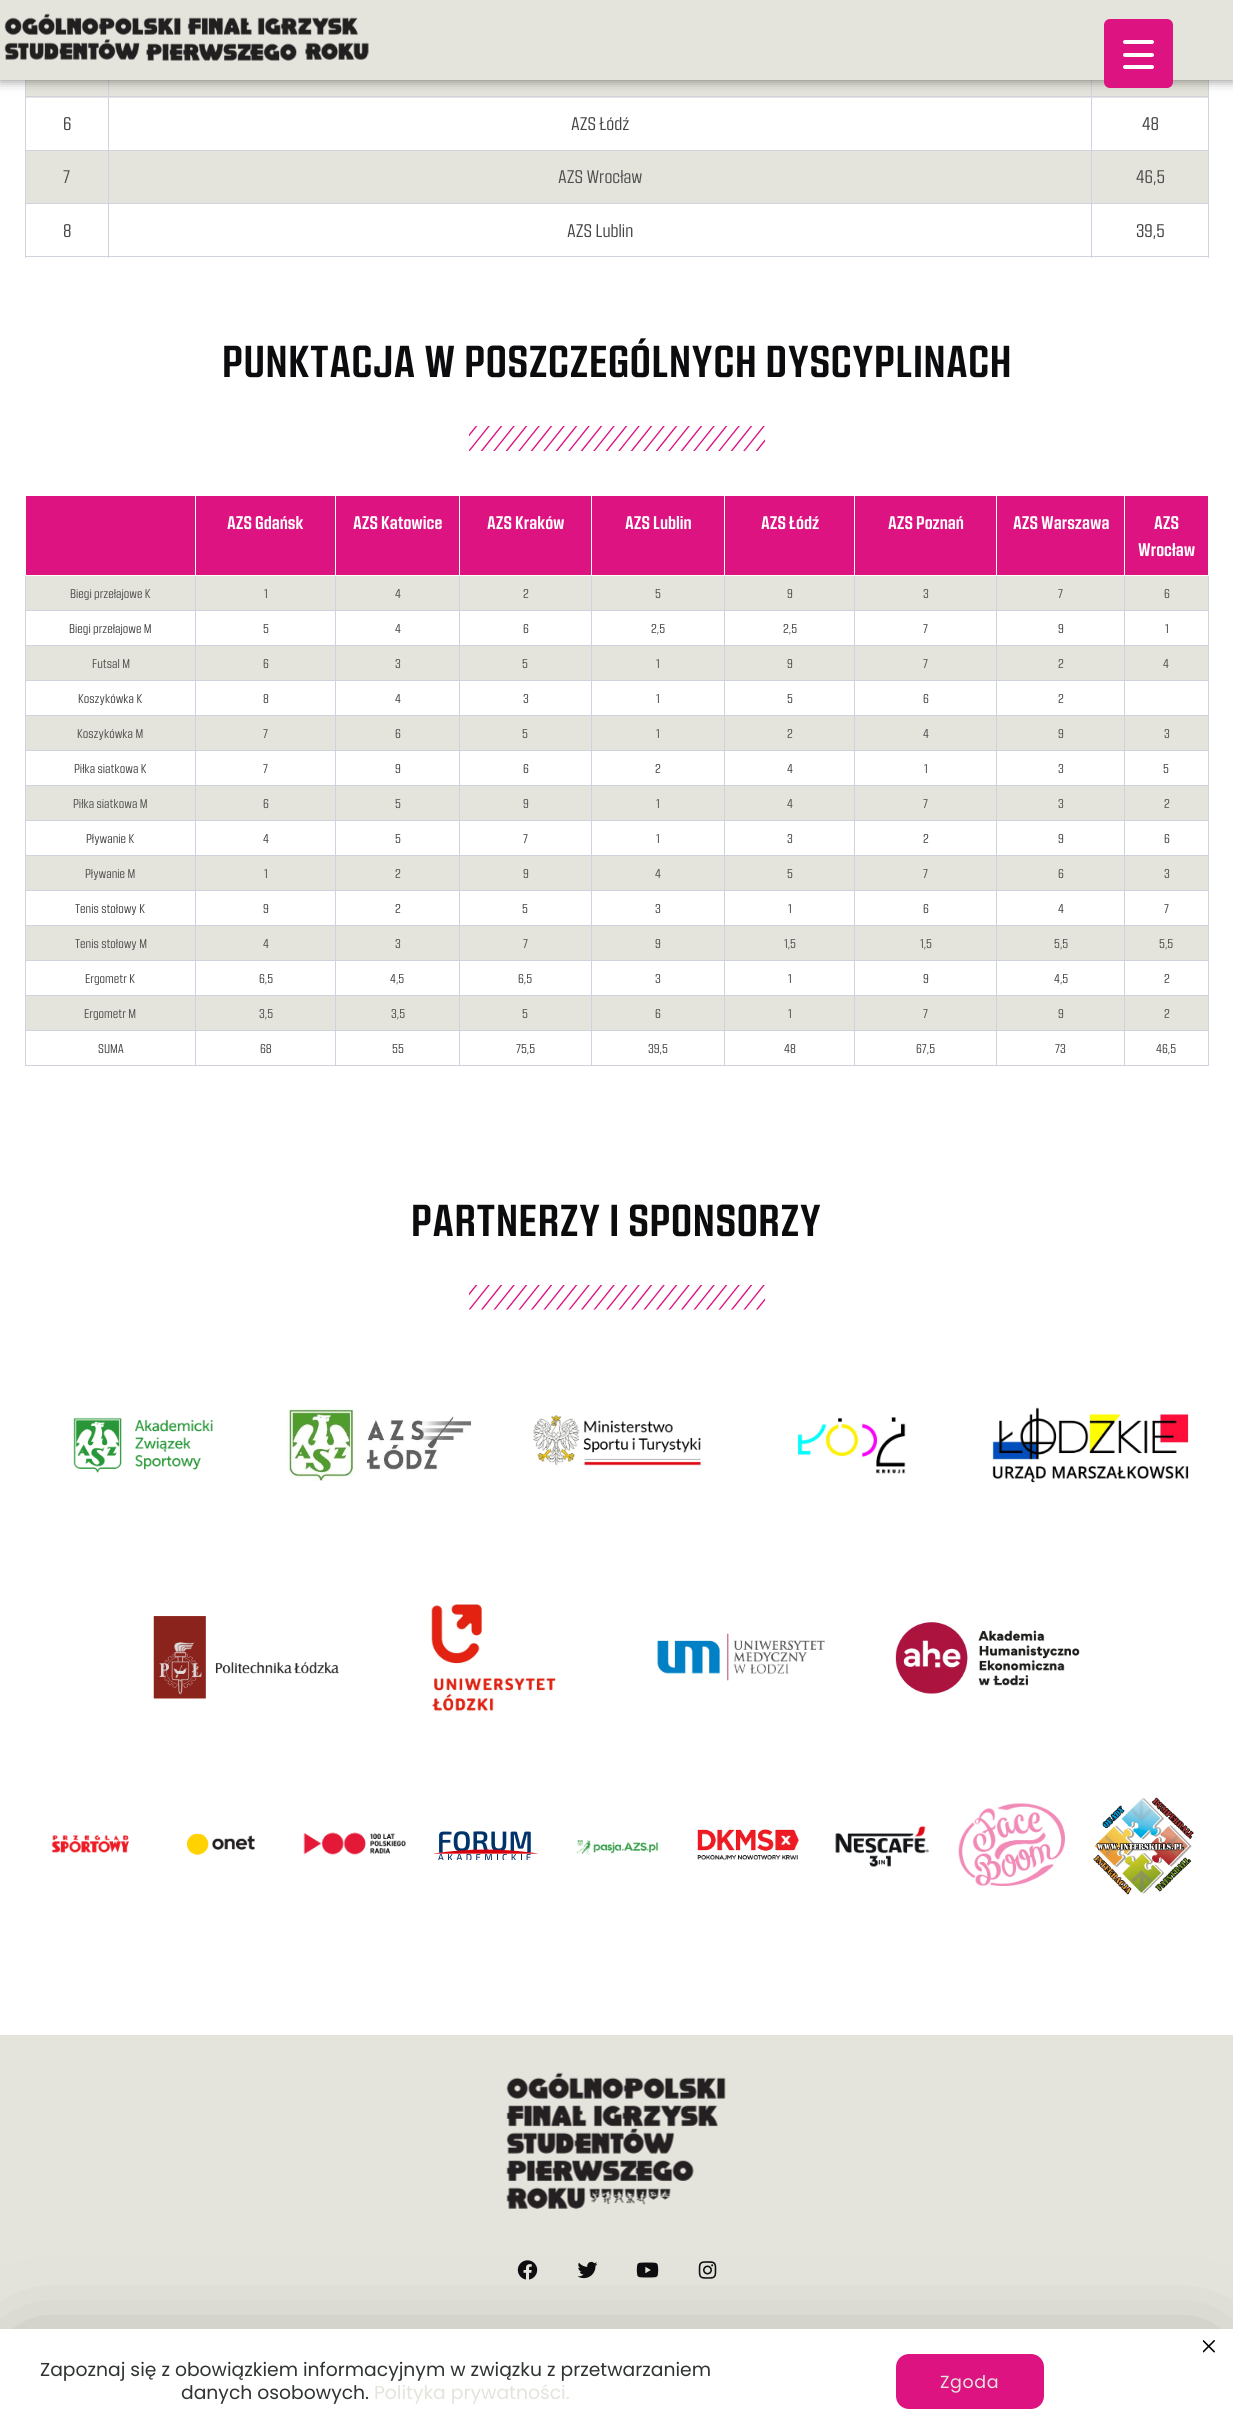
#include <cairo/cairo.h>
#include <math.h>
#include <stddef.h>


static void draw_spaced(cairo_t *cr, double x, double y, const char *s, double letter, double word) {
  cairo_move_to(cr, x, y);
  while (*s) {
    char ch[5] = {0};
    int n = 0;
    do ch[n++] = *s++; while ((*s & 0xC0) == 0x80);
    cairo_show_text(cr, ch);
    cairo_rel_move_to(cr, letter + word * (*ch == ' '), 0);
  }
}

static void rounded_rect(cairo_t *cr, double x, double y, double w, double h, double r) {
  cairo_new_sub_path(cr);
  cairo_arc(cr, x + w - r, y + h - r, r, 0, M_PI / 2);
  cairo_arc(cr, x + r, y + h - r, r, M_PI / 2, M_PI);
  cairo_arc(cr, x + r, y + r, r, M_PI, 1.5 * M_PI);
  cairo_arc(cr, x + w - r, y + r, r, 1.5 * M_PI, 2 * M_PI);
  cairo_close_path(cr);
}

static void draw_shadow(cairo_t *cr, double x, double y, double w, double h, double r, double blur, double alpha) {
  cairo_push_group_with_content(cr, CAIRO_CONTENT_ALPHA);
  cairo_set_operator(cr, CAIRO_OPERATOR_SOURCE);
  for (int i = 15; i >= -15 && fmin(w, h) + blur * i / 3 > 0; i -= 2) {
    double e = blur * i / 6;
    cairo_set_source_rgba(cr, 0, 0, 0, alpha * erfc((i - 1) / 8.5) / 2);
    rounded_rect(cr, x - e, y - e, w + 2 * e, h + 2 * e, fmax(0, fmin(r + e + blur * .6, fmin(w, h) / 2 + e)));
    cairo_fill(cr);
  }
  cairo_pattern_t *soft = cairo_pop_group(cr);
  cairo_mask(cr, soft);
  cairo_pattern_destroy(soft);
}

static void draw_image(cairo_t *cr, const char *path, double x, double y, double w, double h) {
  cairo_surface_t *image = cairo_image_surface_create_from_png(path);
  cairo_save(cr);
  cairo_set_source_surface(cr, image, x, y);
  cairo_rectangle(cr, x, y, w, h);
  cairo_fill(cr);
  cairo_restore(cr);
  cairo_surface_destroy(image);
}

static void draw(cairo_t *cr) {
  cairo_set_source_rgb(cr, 1, 1, 1);
  cairo_paint(cr);
  cairo_set_source_rgb(cr, 228 / 255.0, 228 / 255.0, 220 / 255.0);
  cairo_rectangle(cr, 26, 80, 1182, 123);
  cairo_fill(cr);
  cairo_set_source_rgb(cr, 207 / 255.0, 210 / 255.0, 223 / 255.0);
  cairo_rectangle(cr, 1091, 96, 118, 1);
  cairo_fill(cr);
  cairo_set_source_rgb(cr, 1, 1, 1);
  cairo_rectangle(cr, 26, 98, 1182, 52);
  cairo_fill(cr);
  cairo_set_source_rgb(cr, 207 / 255.0, 210 / 255.0, 223 / 255.0);
  cairo_rectangle(cr, 1091, 150, 118, 1);
  cairo_fill(cr);
  cairo_rectangle(cr, 1091, 203, 118, 1);
  cairo_fill(cr);
  cairo_rectangle(cr, 1208, 203, 1, 55);
  cairo_fill(cr);
  cairo_rectangle(cr, 1091, 256, 118, 1);
  cairo_fill(cr);
  cairo_rectangle(cr, 1091, 203, 1, 55);
  cairo_fill(cr);
  cairo_rectangle(cr, 108, 203, 985, 1);
  cairo_fill(cr);
  cairo_rectangle(cr, 1091, 150, 1, 54);
  cairo_fill(cr);
  cairo_rectangle(cr, 108, 150, 985, 1);
  cairo_fill(cr);
  cairo_rectangle(cr, 1091, 96, 1, 55);
  cairo_fill(cr);
  cairo_rectangle(cr, 108, 96, 985, 1);
  cairo_fill(cr);
  cairo_rectangle(cr, 108, 256, 985, 1);
  cairo_fill(cr);
  cairo_rectangle(cr, 108, 203, 1, 55);
  cairo_fill(cr);
  cairo_rectangle(cr, 25, 203, 84, 1);
  cairo_fill(cr);
  cairo_rectangle(cr, 108, 150, 1, 54);
  cairo_fill(cr);
  cairo_rectangle(cr, 25, 150, 84, 1);
  cairo_fill(cr);
  cairo_rectangle(cr, 108, 96, 1, 55);
  cairo_fill(cr);
  cairo_rectangle(cr, 25, 96, 84, 1);
  cairo_fill(cr);
  cairo_rectangle(cr, 108, 80, 1, 18);
  cairo_fill(cr);
  cairo_rectangle(cr, 1091, 80, 1, 18);
  cairo_fill(cr);
  cairo_rectangle(cr, 25, 256, 84, 1);
  cairo_fill(cr);
  cairo_rectangle(cr, 25, 203, 1, 55);
  cairo_fill(cr);
  cairo_rectangle(cr, 25, 150, 1, 54);
  cairo_fill(cr);
  cairo_rectangle(cr, 25, 80, 1, 71);
  cairo_fill(cr);
  cairo_rectangle(cr, 1208, 150, 1, 54);
  cairo_fill(cr);
  cairo_rectangle(cr, 1208, 80, 1, 71);
  cairo_fill(cr);
  cairo_set_source_rgb(cr, 0, 0, 0);
  draw_shadow(cr, 0, 0, 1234, 80, 0, 6, 0.5);
  cairo_set_source_rgb(cr, 228 / 255.0, 228 / 255.0, 220 / 255.0);
  cairo_rectangle(cr, 0, 0, 1233, 80);
  cairo_fill(cr);
  draw_image(cr, "images/1.png", 4, 13, 365, 48);
  cairo_set_source_rgb(cr, 220 / 255.0, 19 / 255.0, 129 / 255.0);
  rounded_rect(cr, 1104, 19, 69, 69, 6);
  cairo_fill(cr);
  cairo_set_source_rgb(cr, 1, 1, 1);
  rounded_rect(cr, 1123, 53, 31, 4, 2);
  cairo_fill(cr);
  rounded_rect(cr, 1123, 40, 31, 4, 2);
  cairo_fill(cr);
  rounded_rect(cr, 1123, 65, 31, 4, 2);
  cairo_fill(cr);
  draw_image(cr, "images/2.png", 469, 426, 296, 25);
  cairo_set_source_rgb(cr, 220 / 255.0, 19 / 255.0, 129 / 255.0);
  cairo_rectangle(cr, 26, 496, 1182, 79);
  cairo_fill(cr);
  cairo_set_source_rgb(cr, 228 / 255.0, 228 / 255.0, 220 / 255.0);
  cairo_rectangle(cr, 26, 576, 1182, 454);
  cairo_fill(cr);
  cairo_set_source_rgb(cr, 207 / 255.0, 210 / 255.0, 223 / 255.0);
  cairo_rectangle(cr, 1124, 610, 85, 1);
  cairo_fill(cr);
  cairo_set_source_rgb(cr, 1, 1, 1);
  cairo_rectangle(cr, 26, 611, 1182, 34);
  cairo_fill(cr);
  cairo_set_source_rgb(cr, 207 / 255.0, 210 / 255.0, 223 / 255.0);
  cairo_rectangle(cr, 1124, 645, 85, 1);
  cairo_fill(cr);
  cairo_rectangle(cr, 1124, 680, 85, 1);
  cairo_fill(cr);
  cairo_set_source_rgb(cr, 1, 1, 1);
  cairo_rectangle(cr, 26, 681, 1182, 34);
  cairo_fill(cr);
  cairo_set_source_rgb(cr, 207 / 255.0, 210 / 255.0, 223 / 255.0);
  cairo_rectangle(cr, 1124, 715, 85, 1);
  cairo_fill(cr);
  cairo_rectangle(cr, 1124, 750, 85, 1);
  cairo_fill(cr);
  cairo_set_source_rgb(cr, 1, 1, 1);
  cairo_rectangle(cr, 26, 751, 1182, 34);
  cairo_fill(cr);
  cairo_set_source_rgb(cr, 207 / 255.0, 210 / 255.0, 223 / 255.0);
  cairo_rectangle(cr, 1124, 785, 85, 1);
  cairo_fill(cr);
  cairo_rectangle(cr, 1124, 820, 85, 1);
  cairo_fill(cr);
  cairo_set_source_rgb(cr, 1, 1, 1);
  cairo_rectangle(cr, 26, 821, 1182, 34);
  cairo_fill(cr);
  cairo_set_source_rgb(cr, 207 / 255.0, 210 / 255.0, 223 / 255.0);
  cairo_rectangle(cr, 1124, 855, 85, 1);
  cairo_fill(cr);
  cairo_rectangle(cr, 1124, 890, 85, 1);
  cairo_fill(cr);
  cairo_set_source_rgb(cr, 1, 1, 1);
  cairo_rectangle(cr, 26, 891, 1182, 34);
  cairo_fill(cr);
  cairo_set_source_rgb(cr, 207 / 255.0, 210 / 255.0, 223 / 255.0);
  cairo_rectangle(cr, 1124, 925, 85, 1);
  cairo_fill(cr);
  cairo_rectangle(cr, 1124, 960, 85, 1);
  cairo_fill(cr);
  cairo_set_source_rgb(cr, 1, 1, 1);
  cairo_rectangle(cr, 26, 961, 1182, 34);
  cairo_fill(cr);
  cairo_set_source_rgb(cr, 207 / 255.0, 210 / 255.0, 223 / 255.0);
  cairo_rectangle(cr, 1124, 995, 85, 1);
  cairo_fill(cr);
  cairo_rectangle(cr, 1124, 1030, 85, 1);
  cairo_fill(cr);
  cairo_rectangle(cr, 1208, 1030, 1, 36);
  cairo_fill(cr);
  cairo_rectangle(cr, 1124, 1065, 85, 1);
  cairo_fill(cr);
  cairo_rectangle(cr, 1124, 1030, 1, 36);
  cairo_fill(cr);
  cairo_rectangle(cr, 996, 1030, 129, 1);
  cairo_fill(cr);
  cairo_rectangle(cr, 1124, 995, 1, 36);
  cairo_fill(cr);
  cairo_rectangle(cr, 996, 995, 129, 1);
  cairo_fill(cr);
  cairo_rectangle(cr, 1124, 960, 1, 36);
  cairo_fill(cr);
  cairo_rectangle(cr, 996, 960, 129, 1);
  cairo_fill(cr);
  cairo_rectangle(cr, 1124, 925, 1, 36);
  cairo_fill(cr);
  cairo_rectangle(cr, 996, 925, 129, 1);
  cairo_fill(cr);
  cairo_rectangle(cr, 1124, 890, 1, 36);
  cairo_fill(cr);
  cairo_rectangle(cr, 996, 890, 129, 1);
  cairo_fill(cr);
  cairo_rectangle(cr, 1124, 855, 1, 36);
  cairo_fill(cr);
  cairo_rectangle(cr, 996, 855, 129, 1);
  cairo_fill(cr);
  cairo_rectangle(cr, 1124, 820, 1, 36);
  cairo_fill(cr);
  cairo_rectangle(cr, 996, 820, 129, 1);
  cairo_fill(cr);
  cairo_rectangle(cr, 1124, 785, 1, 36);
  cairo_fill(cr);
  cairo_rectangle(cr, 996, 785, 129, 1);
  cairo_fill(cr);
  cairo_rectangle(cr, 1124, 750, 1, 36);
  cairo_fill(cr);
  cairo_rectangle(cr, 996, 750, 129, 1);
  cairo_fill(cr);
  cairo_rectangle(cr, 1124, 715, 1, 36);
  cairo_fill(cr);
  cairo_rectangle(cr, 996, 715, 129, 1);
  cairo_fill(cr);
  cairo_rectangle(cr, 1124, 680, 1, 36);
  cairo_fill(cr);
  cairo_rectangle(cr, 996, 680, 129, 1);
  cairo_fill(cr);
  cairo_rectangle(cr, 1124, 645, 1, 36);
  cairo_fill(cr);
  cairo_rectangle(cr, 996, 645, 129, 1);
  cairo_fill(cr);
  cairo_rectangle(cr, 1124, 610, 1, 36);
  cairo_fill(cr);
  cairo_rectangle(cr, 996, 610, 129, 1);
  cairo_fill(cr);
  cairo_rectangle(cr, 996, 1065, 129, 1);
  cairo_fill(cr);
  cairo_rectangle(cr, 996, 1030, 1, 36);
  cairo_fill(cr);
  cairo_rectangle(cr, 854, 1030, 144, 1);
  cairo_fill(cr);
  cairo_rectangle(cr, 996, 995, 1, 36);
  cairo_fill(cr);
  cairo_rectangle(cr, 854, 995, 144, 1);
  cairo_fill(cr);
  cairo_rectangle(cr, 996, 960, 1, 36);
  cairo_fill(cr);
  cairo_rectangle(cr, 854, 960, 144, 1);
  cairo_fill(cr);
  cairo_rectangle(cr, 996, 925, 1, 36);
  cairo_fill(cr);
  cairo_rectangle(cr, 854, 925, 144, 1);
  cairo_fill(cr);
  cairo_rectangle(cr, 996, 890, 1, 36);
  cairo_fill(cr);
  cairo_rectangle(cr, 854, 890, 144, 1);
  cairo_fill(cr);
  cairo_rectangle(cr, 996, 855, 1, 36);
  cairo_fill(cr);
  cairo_rectangle(cr, 854, 855, 144, 1);
  cairo_fill(cr);
  cairo_rectangle(cr, 996, 820, 1, 36);
  cairo_fill(cr);
  cairo_rectangle(cr, 854, 820, 144, 1);
  cairo_fill(cr);
  cairo_rectangle(cr, 996, 785, 1, 36);
  cairo_fill(cr);
  cairo_rectangle(cr, 854, 785, 144, 1);
  cairo_fill(cr);
  cairo_rectangle(cr, 996, 750, 1, 36);
  cairo_fill(cr);
  cairo_rectangle(cr, 854, 750, 144, 1);
  cairo_fill(cr);
  cairo_rectangle(cr, 996, 715, 1, 36);
  cairo_fill(cr);
  cairo_rectangle(cr, 854, 715, 144, 1);
  cairo_fill(cr);
  cairo_rectangle(cr, 996, 680, 1, 36);
  cairo_fill(cr);
  cairo_rectangle(cr, 854, 680, 144, 1);
  cairo_fill(cr);
  cairo_rectangle(cr, 996, 645, 1, 36);
  cairo_fill(cr);
  cairo_rectangle(cr, 854, 645, 144, 1);
  cairo_fill(cr);
  cairo_rectangle(cr, 996, 610, 1, 36);
  cairo_fill(cr);
  cairo_rectangle(cr, 854, 610, 144, 1);
  cairo_fill(cr);
  cairo_rectangle(cr, 854, 1065, 144, 1);
  cairo_fill(cr);
  cairo_rectangle(cr, 854, 1030, 1, 36);
  cairo_fill(cr);
  cairo_rectangle(cr, 724, 1030, 131, 1);
  cairo_fill(cr);
  cairo_rectangle(cr, 854, 995, 1, 36);
  cairo_fill(cr);
  cairo_rectangle(cr, 724, 995, 131, 1);
  cairo_fill(cr);
  cairo_rectangle(cr, 854, 960, 1, 36);
  cairo_fill(cr);
  cairo_rectangle(cr, 724, 960, 131, 1);
  cairo_fill(cr);
  cairo_rectangle(cr, 854, 925, 1, 36);
  cairo_fill(cr);
  cairo_rectangle(cr, 724, 925, 131, 1);
  cairo_fill(cr);
  cairo_rectangle(cr, 854, 890, 1, 36);
  cairo_fill(cr);
  cairo_rectangle(cr, 724, 890, 131, 1);
  cairo_fill(cr);
  cairo_rectangle(cr, 854, 855, 1, 36);
  cairo_fill(cr);
  cairo_rectangle(cr, 724, 855, 131, 1);
  cairo_fill(cr);
  cairo_rectangle(cr, 854, 820, 1, 36);
  cairo_fill(cr);
  cairo_rectangle(cr, 724, 820, 131, 1);
  cairo_fill(cr);
  cairo_rectangle(cr, 854, 785, 1, 36);
  cairo_fill(cr);
  cairo_rectangle(cr, 724, 785, 131, 1);
  cairo_fill(cr);
  cairo_rectangle(cr, 854, 750, 1, 36);
  cairo_fill(cr);
  cairo_rectangle(cr, 724, 750, 131, 1);
  cairo_fill(cr);
  cairo_rectangle(cr, 854, 715, 1, 36);
  cairo_fill(cr);
  cairo_rectangle(cr, 724, 715, 131, 1);
  cairo_fill(cr);
  cairo_rectangle(cr, 854, 680, 1, 36);
  cairo_fill(cr);
  cairo_rectangle(cr, 724, 680, 131, 1);
  cairo_fill(cr);
  cairo_rectangle(cr, 854, 645, 1, 36);
  cairo_fill(cr);
  cairo_rectangle(cr, 724, 645, 131, 1);
  cairo_fill(cr);
  cairo_rectangle(cr, 854, 610, 1, 36);
  cairo_fill(cr);
  cairo_rectangle(cr, 724, 610, 131, 1);
  cairo_fill(cr);
  cairo_rectangle(cr, 724, 1065, 131, 1);
  cairo_fill(cr);
  cairo_rectangle(cr, 724, 1030, 1, 36);
  cairo_fill(cr);
  cairo_rectangle(cr, 591, 1030, 134, 1);
  cairo_fill(cr);
  cairo_rectangle(cr, 724, 995, 1, 36);
  cairo_fill(cr);
  cairo_rectangle(cr, 591, 995, 134, 1);
  cairo_fill(cr);
  cairo_rectangle(cr, 724, 960, 1, 36);
  cairo_fill(cr);
  cairo_rectangle(cr, 591, 960, 134, 1);
  cairo_fill(cr);
  cairo_rectangle(cr, 724, 925, 1, 36);
  cairo_fill(cr);
  cairo_rectangle(cr, 591, 925, 134, 1);
  cairo_fill(cr);
  cairo_rectangle(cr, 724, 890, 1, 36);
  cairo_fill(cr);
  cairo_rectangle(cr, 591, 890, 134, 1);
  cairo_fill(cr);
  cairo_rectangle(cr, 724, 855, 1, 36);
  cairo_fill(cr);
  cairo_rectangle(cr, 591, 855, 134, 1);
  cairo_fill(cr);
  cairo_rectangle(cr, 724, 820, 1, 36);
  cairo_fill(cr);
  cairo_rectangle(cr, 591, 820, 134, 1);
  cairo_fill(cr);
  cairo_rectangle(cr, 724, 785, 1, 36);
  cairo_fill(cr);
  cairo_rectangle(cr, 591, 785, 134, 1);
  cairo_fill(cr);
  cairo_rectangle(cr, 724, 750, 1, 36);
  cairo_fill(cr);
  cairo_rectangle(cr, 591, 750, 134, 1);
  cairo_fill(cr);
  cairo_rectangle(cr, 724, 715, 1, 36);
  cairo_fill(cr);
  cairo_rectangle(cr, 591, 715, 134, 1);
  cairo_fill(cr);
  cairo_rectangle(cr, 724, 680, 1, 36);
  cairo_fill(cr);
  cairo_rectangle(cr, 591, 680, 134, 1);
  cairo_fill(cr);
  cairo_rectangle(cr, 724, 645, 1, 36);
  cairo_fill(cr);
  cairo_rectangle(cr, 591, 645, 134, 1);
  cairo_fill(cr);
  cairo_rectangle(cr, 724, 610, 1, 36);
  cairo_fill(cr);
  cairo_rectangle(cr, 591, 610, 134, 1);
  cairo_fill(cr);
  cairo_rectangle(cr, 591, 1065, 134, 1);
  cairo_fill(cr);
  cairo_rectangle(cr, 591, 1030, 1, 36);
  cairo_fill(cr);
  cairo_rectangle(cr, 459, 1030, 134, 1);
  cairo_fill(cr);
  cairo_rectangle(cr, 591, 995, 1, 36);
  cairo_fill(cr);
  cairo_rectangle(cr, 459, 995, 134, 1);
  cairo_fill(cr);
  cairo_rectangle(cr, 591, 960, 1, 36);
  cairo_fill(cr);
  cairo_rectangle(cr, 459, 960, 134, 1);
  cairo_fill(cr);
  cairo_rectangle(cr, 591, 925, 1, 36);
  cairo_fill(cr);
  cairo_rectangle(cr, 459, 925, 134, 1);
  cairo_fill(cr);
  cairo_rectangle(cr, 591, 890, 1, 36);
  cairo_fill(cr);
  cairo_rectangle(cr, 459, 890, 134, 1);
  cairo_fill(cr);
  cairo_rectangle(cr, 591, 855, 1, 36);
  cairo_fill(cr);
  cairo_rectangle(cr, 459, 855, 134, 1);
  cairo_fill(cr);
  cairo_rectangle(cr, 591, 820, 1, 36);
  cairo_fill(cr);
  cairo_rectangle(cr, 459, 820, 134, 1);
  cairo_fill(cr);
  cairo_rectangle(cr, 591, 785, 1, 36);
  cairo_fill(cr);
  cairo_rectangle(cr, 459, 785, 134, 1);
  cairo_fill(cr);
  cairo_rectangle(cr, 591, 750, 1, 36);
  cairo_fill(cr);
  cairo_rectangle(cr, 459, 750, 134, 1);
  cairo_fill(cr);
  cairo_rectangle(cr, 591, 715, 1, 36);
  cairo_fill(cr);
  cairo_rectangle(cr, 459, 715, 134, 1);
  cairo_fill(cr);
  cairo_rectangle(cr, 591, 680, 1, 36);
  cairo_fill(cr);
  cairo_rectangle(cr, 459, 680, 134, 1);
  cairo_fill(cr);
  cairo_rectangle(cr, 591, 645, 1, 36);
  cairo_fill(cr);
  cairo_rectangle(cr, 459, 645, 134, 1);
  cairo_fill(cr);
  cairo_rectangle(cr, 591, 610, 1, 36);
  cairo_fill(cr);
  cairo_rectangle(cr, 459, 610, 134, 1);
  cairo_fill(cr);
  cairo_rectangle(cr, 459, 1065, 134, 1);
  cairo_fill(cr);
  cairo_rectangle(cr, 459, 1030, 1, 36);
  cairo_fill(cr);
  cairo_rectangle(cr, 335, 1030, 125, 1);
  cairo_fill(cr);
  cairo_rectangle(cr, 459, 995, 1, 36);
  cairo_fill(cr);
  cairo_rectangle(cr, 335, 995, 125, 1);
  cairo_fill(cr);
  cairo_rectangle(cr, 459, 960, 1, 36);
  cairo_fill(cr);
  cairo_rectangle(cr, 335, 960, 125, 1);
  cairo_fill(cr);
  cairo_rectangle(cr, 459, 925, 1, 36);
  cairo_fill(cr);
  cairo_rectangle(cr, 335, 925, 125, 1);
  cairo_fill(cr);
  cairo_rectangle(cr, 459, 890, 1, 36);
  cairo_fill(cr);
  cairo_rectangle(cr, 335, 890, 125, 1);
  cairo_fill(cr);
  cairo_rectangle(cr, 459, 855, 1, 36);
  cairo_fill(cr);
  cairo_rectangle(cr, 335, 855, 125, 1);
  cairo_fill(cr);
  cairo_rectangle(cr, 459, 820, 1, 36);
  cairo_fill(cr);
  cairo_rectangle(cr, 335, 820, 125, 1);
  cairo_fill(cr);
  cairo_rectangle(cr, 459, 785, 1, 36);
  cairo_fill(cr);
  cairo_rectangle(cr, 335, 785, 125, 1);
  cairo_fill(cr);
  cairo_rectangle(cr, 459, 750, 1, 36);
  cairo_fill(cr);
  cairo_rectangle(cr, 335, 750, 125, 1);
  cairo_fill(cr);
  cairo_rectangle(cr, 459, 715, 1, 36);
  cairo_fill(cr);
  cairo_rectangle(cr, 335, 715, 125, 1);
  cairo_fill(cr);
  cairo_rectangle(cr, 459, 680, 1, 36);
  cairo_fill(cr);
  cairo_rectangle(cr, 335, 680, 125, 1);
  cairo_fill(cr);
  cairo_rectangle(cr, 459, 645, 1, 36);
  cairo_fill(cr);
  cairo_rectangle(cr, 335, 645, 125, 1);
  cairo_fill(cr);
  cairo_rectangle(cr, 459, 610, 1, 36);
  cairo_fill(cr);
  cairo_rectangle(cr, 335, 610, 125, 1);
  cairo_fill(cr);
  cairo_rectangle(cr, 335, 1065, 125, 1);
  cairo_fill(cr);
  cairo_rectangle(cr, 335, 1030, 1, 36);
  cairo_fill(cr);
  cairo_rectangle(cr, 195, 1030, 141, 1);
  cairo_fill(cr);
  cairo_rectangle(cr, 335, 995, 1, 36);
  cairo_fill(cr);
  cairo_rectangle(cr, 195, 995, 141, 1);
  cairo_fill(cr);
  cairo_rectangle(cr, 335, 960, 1, 36);
  cairo_fill(cr);
  cairo_rectangle(cr, 195, 960, 141, 1);
  cairo_fill(cr);
  cairo_rectangle(cr, 335, 925, 1, 36);
  cairo_fill(cr);
  cairo_rectangle(cr, 195, 925, 141, 1);
  cairo_fill(cr);
  cairo_rectangle(cr, 335, 890, 1, 36);
  cairo_fill(cr);
  cairo_rectangle(cr, 195, 890, 141, 1);
  cairo_fill(cr);
  cairo_rectangle(cr, 335, 855, 1, 36);
  cairo_fill(cr);
  cairo_rectangle(cr, 195, 855, 141, 1);
  cairo_fill(cr);
  cairo_rectangle(cr, 335, 820, 1, 36);
  cairo_fill(cr);
  cairo_rectangle(cr, 195, 820, 141, 1);
  cairo_fill(cr);
  cairo_rectangle(cr, 335, 785, 1, 36);
  cairo_fill(cr);
  cairo_rectangle(cr, 195, 785, 141, 1);
  cairo_fill(cr);
  cairo_rectangle(cr, 335, 750, 1, 36);
  cairo_fill(cr);
  cairo_rectangle(cr, 195, 750, 141, 1);
  cairo_fill(cr);
  cairo_rectangle(cr, 335, 715, 1, 36);
  cairo_fill(cr);
  cairo_rectangle(cr, 195, 715, 141, 1);
  cairo_fill(cr);
  cairo_rectangle(cr, 335, 680, 1, 36);
  cairo_fill(cr);
  cairo_rectangle(cr, 195, 680, 141, 1);
  cairo_fill(cr);
  cairo_rectangle(cr, 335, 645, 1, 36);
  cairo_fill(cr);
  cairo_rectangle(cr, 195, 645, 141, 1);
  cairo_fill(cr);
  cairo_rectangle(cr, 335, 610, 1, 36);
  cairo_fill(cr);
  cairo_rectangle(cr, 195, 610, 141, 1);
  cairo_fill(cr);
  cairo_rectangle(cr, 195, 1065, 141, 1);
  cairo_fill(cr);
  cairo_rectangle(cr, 195, 1030, 1, 36);
  cairo_fill(cr);
  cairo_rectangle(cr, 25, 1030, 171, 1);
  cairo_fill(cr);
  cairo_rectangle(cr, 195, 995, 1, 36);
  cairo_fill(cr);
  cairo_rectangle(cr, 25, 995, 171, 1);
  cairo_fill(cr);
  cairo_rectangle(cr, 195, 960, 1, 36);
  cairo_fill(cr);
  cairo_rectangle(cr, 25, 960, 171, 1);
  cairo_fill(cr);
  cairo_rectangle(cr, 195, 925, 1, 36);
  cairo_fill(cr);
  cairo_rectangle(cr, 25, 925, 171, 1);
  cairo_fill(cr);
  cairo_rectangle(cr, 195, 890, 1, 36);
  cairo_fill(cr);
  cairo_rectangle(cr, 25, 890, 171, 1);
  cairo_fill(cr);
  cairo_rectangle(cr, 195, 855, 1, 36);
  cairo_fill(cr);
  cairo_rectangle(cr, 25, 855, 171, 1);
  cairo_fill(cr);
  cairo_rectangle(cr, 195, 820, 1, 36);
  cairo_fill(cr);
  cairo_rectangle(cr, 25, 820, 171, 1);
  cairo_fill(cr);
  cairo_rectangle(cr, 195, 785, 1, 36);
  cairo_fill(cr);
  cairo_rectangle(cr, 25, 785, 171, 1);
  cairo_fill(cr);
  cairo_rectangle(cr, 195, 750, 1, 36);
  cairo_fill(cr);
  cairo_rectangle(cr, 25, 750, 171, 1);
  cairo_fill(cr);
  cairo_rectangle(cr, 195, 715, 1, 36);
  cairo_fill(cr);
  cairo_rectangle(cr, 25, 715, 171, 1);
  cairo_fill(cr);
  cairo_rectangle(cr, 195, 680, 1, 36);
  cairo_fill(cr);
  cairo_rectangle(cr, 25, 680, 171, 1);
  cairo_fill(cr);
  cairo_rectangle(cr, 195, 645, 1, 36);
  cairo_fill(cr);
  cairo_rectangle(cr, 25, 645, 171, 1);
  cairo_fill(cr);
  cairo_rectangle(cr, 195, 610, 1, 36);
  cairo_fill(cr);
  cairo_rectangle(cr, 25, 610, 171, 1);
  cairo_fill(cr);
  cairo_rectangle(cr, 195, 575, 1, 36);
  cairo_fill(cr);
  cairo_set_source_rgb(cr, 1, 1, 1);
  cairo_rectangle(cr, 195, 495, 1, 81);
  cairo_fill(cr);
  cairo_set_source_rgb(cr, 207 / 255.0, 210 / 255.0, 223 / 255.0);
  cairo_rectangle(cr, 335, 575, 1, 36);
  cairo_fill(cr);
  cairo_set_source_rgb(cr, 1, 1, 1);
  cairo_rectangle(cr, 335, 495, 1, 81);
  cairo_fill(cr);
  cairo_set_source_rgb(cr, 207 / 255.0, 210 / 255.0, 223 / 255.0);
  cairo_rectangle(cr, 459, 575, 1, 36);
  cairo_fill(cr);
  cairo_set_source_rgb(cr, 1, 1, 1);
  cairo_rectangle(cr, 459, 495, 1, 81);
  cairo_fill(cr);
  cairo_set_source_rgb(cr, 207 / 255.0, 210 / 255.0, 223 / 255.0);
  cairo_rectangle(cr, 591, 575, 1, 36);
  cairo_fill(cr);
  cairo_set_source_rgb(cr, 1, 1, 1);
  cairo_rectangle(cr, 591, 495, 1, 81);
  cairo_fill(cr);
  cairo_set_source_rgb(cr, 207 / 255.0, 210 / 255.0, 223 / 255.0);
  cairo_rectangle(cr, 724, 575, 1, 36);
  cairo_fill(cr);
  cairo_set_source_rgb(cr, 1, 1, 1);
  cairo_rectangle(cr, 724, 495, 1, 81);
  cairo_fill(cr);
  cairo_set_source_rgb(cr, 207 / 255.0, 210 / 255.0, 223 / 255.0);
  cairo_rectangle(cr, 854, 575, 1, 36);
  cairo_fill(cr);
  cairo_set_source_rgb(cr, 1, 1, 1);
  cairo_rectangle(cr, 854, 495, 1, 81);
  cairo_fill(cr);
  cairo_set_source_rgb(cr, 207 / 255.0, 210 / 255.0, 223 / 255.0);
  cairo_rectangle(cr, 996, 575, 1, 36);
  cairo_fill(cr);
  cairo_set_source_rgb(cr, 1, 1, 1);
  cairo_rectangle(cr, 996, 495, 1, 81);
  cairo_fill(cr);
  cairo_set_source_rgb(cr, 207 / 255.0, 210 / 255.0, 223 / 255.0);
  cairo_rectangle(cr, 1208, 995, 1, 36);
  cairo_fill(cr);
  cairo_rectangle(cr, 1208, 960, 1, 36);
  cairo_fill(cr);
  cairo_rectangle(cr, 1208, 925, 1, 36);
  cairo_fill(cr);
  cairo_rectangle(cr, 1208, 890, 1, 36);
  cairo_fill(cr);
  cairo_rectangle(cr, 1208, 855, 1, 36);
  cairo_fill(cr);
  cairo_rectangle(cr, 1208, 820, 1, 36);
  cairo_fill(cr);
  cairo_rectangle(cr, 1208, 785, 1, 36);
  cairo_fill(cr);
  cairo_rectangle(cr, 1208, 750, 1, 36);
  cairo_fill(cr);
  cairo_rectangle(cr, 1208, 715, 1, 36);
  cairo_fill(cr);
  cairo_rectangle(cr, 1208, 680, 1, 36);
  cairo_fill(cr);
  cairo_rectangle(cr, 1208, 645, 1, 36);
  cairo_fill(cr);
  cairo_rectangle(cr, 1208, 575, 1, 71);
  cairo_fill(cr);
  cairo_set_source_rgb(cr, 1, 1, 1);
  cairo_rectangle(cr, 1208, 575, 1, 1);
  cairo_fill(cr);
  cairo_set_source_rgb(cr, 207 / 255.0, 210 / 255.0, 223 / 255.0);
  cairo_rectangle(cr, 1124, 575, 1, 36);
  cairo_fill(cr);
  cairo_set_source_rgb(cr, 1, 1, 1);
  cairo_rectangle(cr, 1124, 495, 1, 81);
  cairo_fill(cr);
  cairo_set_source_rgb(cr, 207 / 255.0, 210 / 255.0, 223 / 255.0);
  cairo_rectangle(cr, 25, 1065, 171, 1);
  cairo_fill(cr);
  cairo_rectangle(cr, 25, 1030, 1, 36);
  cairo_fill(cr);
  cairo_rectangle(cr, 25, 995, 1, 36);
  cairo_fill(cr);
  cairo_rectangle(cr, 25, 960, 1, 36);
  cairo_fill(cr);
  cairo_rectangle(cr, 25, 925, 1, 36);
  cairo_fill(cr);
  cairo_rectangle(cr, 25, 890, 1, 36);
  cairo_fill(cr);
  cairo_rectangle(cr, 25, 855, 1, 36);
  cairo_fill(cr);
  cairo_rectangle(cr, 25, 820, 1, 36);
  cairo_fill(cr);
  cairo_rectangle(cr, 25, 785, 1, 36);
  cairo_fill(cr);
  cairo_rectangle(cr, 25, 750, 1, 36);
  cairo_fill(cr);
  cairo_rectangle(cr, 25, 715, 1, 36);
  cairo_fill(cr);
  cairo_rectangle(cr, 25, 680, 1, 36);
  cairo_fill(cr);
  cairo_rectangle(cr, 25, 645, 1, 36);
  cairo_fill(cr);
  cairo_rectangle(cr, 25, 575, 1, 71);
  cairo_fill(cr);
  cairo_set_source_rgb(cr, 1, 1, 1);
  cairo_rectangle(cr, 25, 575, 1, 1);
  cairo_fill(cr);
  draw_image(cr, "images/3.png", 469, 1285, 296, 25);
  draw_image(cr, "images/4.png", 73, 1417, 140, 56);
  draw_image(cr, "images/5.png", 286, 1408, 187, 73);
  draw_image(cr, "images/6.png", 533, 1415, 168, 51);
  draw_image(cr, "images/7.png", 797, 1417, 109, 57);
  draw_image(cr, "images/8.png", 992, 1407, 197, 76);
  draw_image(cr, "images/9.png", 153, 1616, 186, 83);
  draw_image(cr, "images/10.png", 431, 1603, 125, 109);
  draw_image(cr, "images/11.png", 657, 1633, 168, 48);
  draw_image(cr, "images/12.png", 895, 1622, 185, 72);
  draw_image(cr, "images/13.png", 51, 1835, 78, 18);
  draw_image(cr, "images/14.png", 186, 1833, 69, 22);
  draw_image(cr, "images/15.png", 303, 1832, 103, 23);
  draw_image(cr, "images/16.png", 433, 1831, 106, 29);
  draw_image(cr, "images/17.png", 576, 1840, 83, 15);
  draw_image(cr, "images/18.png", 697, 1829, 102, 31);
  draw_image(cr, "images/19.png", 835, 1826, 94, 41);
  draw_image(cr, "images/20.png", 958, 1803, 107, 83);
  draw_image(cr, "images/21.png", 1093, 1797, 101, 98);
  cairo_set_source_rgb(cr, 228 / 255.0, 228 / 255.0, 220 / 255.0);
  cairo_rectangle(cr, 0, 2035, 1233, 294);
  cairo_fill(cr);
  draw_image(cr, "images/22.png", 506, 2072, 220, 137);
  draw_image(cr, "images/23.png", 517, 2260, 21, 20);
  draw_image(cr, "images/24.png", 577, 2261, 21, 18);
  draw_image(cr, "images/25.png", 636, 2262, 23, 16);
  draw_image(cr, "images/26.png", 698, 2261, 19, 18);
  cairo_set_source_rgb(cr, 128 / 255.0, 128 / 255.0, 128 / 255.0);
  draw_shadow(cr, 38, 2366, 1158, 30, 0, 44, 1);
  cairo_set_source_rgb(cr, 1, 1, 1);
  cairo_rectangle(cr, 0, 2329, 1233, 104);
  cairo_fill(cr);
  draw_image(cr, "images/27.png", 1203, 2340, 12, 13);
  cairo_set_source_rgb(cr, 220 / 255.0, 19 / 255.0, 129 / 255.0);
  rounded_rect(cr, 896, 2354, 148, 55, 13);
  cairo_fill(cr);
  cairo_select_font_face(cr, "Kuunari", CAIRO_FONT_SLANT_NORMAL, CAIRO_FONT_WEIGHT_NORMAL);
  cairo_set_font_size(cr, 18);
  cairo_set_source_rgb(cr, 68 / 255.0, 68 / 255.0, 68 / 255.0);
  cairo_move_to(cr, 63, 130);
  cairo_show_text(cr, "6");
  cairo_move_to(cr, 571, 130);
  cairo_show_text(cr, "AZS Łódź");
  cairo_move_to(cr, 1142, 130);
  cairo_show_text(cr, "48");
  cairo_set_source_rgb(cr, 79 / 255.0, 79 / 255.0, 79 / 255.0);
  cairo_move_to(cr, 63, 183);
  cairo_show_text(cr, "7");
  cairo_move_to(cr, 558, 183);
  cairo_show_text(cr, "AZS Wrocław");
  cairo_move_to(cr, 1136, 183);
  cairo_show_text(cr, "46,5");
  cairo_set_source_rgb(cr, 68 / 255.0, 68 / 255.0, 68 / 255.0);
  cairo_move_to(cr, 63, 237);
  cairo_show_text(cr, "8");
  cairo_move_to(cr, 567, 237);
  cairo_show_text(cr, "AZS Lublin");
  cairo_move_to(cr, 1136, 237);
  cairo_show_text(cr, "39,5");
  cairo_select_font_face(cr, "Kuunari", CAIRO_FONT_SLANT_NORMAL, CAIRO_FONT_WEIGHT_BOLD);
  cairo_set_font_size(cr, 44);
  cairo_set_source_rgb(cr, 12 / 255.0, 12 / 255.0, 14 / 255.0);
  draw_spaced(cr, 222, 377, "PUNKTACJA W POSZCZEGÓLNYCH DYSCYPLINACH", 0.6, 0);
  cairo_set_font_size(cr, 18);
  cairo_set_source_rgb(cr, 1, 1, 1);
  cairo_move_to(cr, 227, 529);
  cairo_show_text(cr, "AZS Gdańsk");
  cairo_move_to(cr, 353, 529);
  cairo_show_text(cr, "AZS Katowice");
  cairo_move_to(cr, 487, 529);
  cairo_show_text(cr, "AZS Kraków");
  cairo_move_to(cr, 625, 529);
  cairo_show_text(cr, "AZS Lublin");
  cairo_move_to(cr, 761, 529);
  cairo_show_text(cr, "AZS Łódź");
  cairo_move_to(cr, 888, 529);
  cairo_show_text(cr, "AZS Poznań");
  cairo_move_to(cr, 1013, 529);
  cairo_show_text(cr, "AZS Warszawa");
  cairo_move_to(cr, 1154, 529);
  cairo_show_text(cr, "AZS");
  cairo_move_to(cr, 1138, 556);
  cairo_show_text(cr, "Wrocław");
  cairo_select_font_face(cr, "Kuunari", CAIRO_FONT_SLANT_NORMAL, CAIRO_FONT_WEIGHT_NORMAL);
  cairo_set_font_size(cr, 12.5);
  cairo_set_source_rgb(cr, 79 / 255.0, 79 / 255.0, 79 / 255.0);
  cairo_move_to(cr, 70, 598);
  cairo_show_text(cr, "Biegi przełajowe K");
  cairo_move_to(cr, 264, 598);
  cairo_show_text(cr, "1");
  cairo_move_to(cr, 395, 598);
  cairo_show_text(cr, "4");
  cairo_move_to(cr, 523, 598);
  cairo_show_text(cr, "2");
  cairo_move_to(cr, 655, 598);
  cairo_show_text(cr, "5");
  cairo_move_to(cr, 787, 598);
  cairo_show_text(cr, "9");
  cairo_move_to(cr, 923, 598);
  cairo_show_text(cr, "3");
  cairo_move_to(cr, 1058, 598);
  cairo_show_text(cr, "7");
  cairo_move_to(cr, 1164, 598);
  cairo_show_text(cr, "6");
  cairo_set_source_rgb(cr, 68 / 255.0, 68 / 255.0, 68 / 255.0);
  cairo_move_to(cr, 69, 633);
  cairo_show_text(cr, "Biegi przełajowe M");
  cairo_move_to(cr, 263, 633);
  cairo_show_text(cr, "5");
  cairo_move_to(cr, 395, 633);
  cairo_show_text(cr, "4");
  cairo_move_to(cr, 523, 633);
  cairo_show_text(cr, "6");
  cairo_move_to(cr, 651, 633);
  cairo_show_text(cr, "2,5");
  cairo_move_to(cr, 783, 633);
  cairo_show_text(cr, "2,5");
  cairo_move_to(cr, 923, 633);
  cairo_show_text(cr, "7");
  cairo_move_to(cr, 1058, 633);
  cairo_show_text(cr, "9");
  cairo_move_to(cr, 1165, 633);
  cairo_show_text(cr, "1");
  cairo_set_source_rgb(cr, 79 / 255.0, 79 / 255.0, 79 / 255.0);
  cairo_move_to(cr, 92, 668);
  cairo_show_text(cr, "Futsal M");
  cairo_move_to(cr, 263, 668);
  cairo_show_text(cr, "6");
  cairo_move_to(cr, 395, 668);
  cairo_show_text(cr, "3");
  cairo_move_to(cr, 522, 668);
  cairo_show_text(cr, "5");
  cairo_move_to(cr, 656, 668);
  cairo_show_text(cr, "1");
  cairo_move_to(cr, 787, 668);
  cairo_show_text(cr, "9");
  cairo_move_to(cr, 923, 668);
  cairo_show_text(cr, "7");
  cairo_move_to(cr, 1058, 668);
  cairo_show_text(cr, "2");
  cairo_move_to(cr, 1163, 668);
  cairo_show_text(cr, "4");
  cairo_set_source_rgb(cr, 68 / 255.0, 68 / 255.0, 68 / 255.0);
  cairo_move_to(cr, 78, 703);
  cairo_show_text(cr, "Koszykówka K");
  cairo_move_to(cr, 263, 703);
  cairo_show_text(cr, "8");
  cairo_move_to(cr, 395, 703);
  cairo_show_text(cr, "4");
  cairo_move_to(cr, 523, 703);
  cairo_show_text(cr, "3");
  cairo_move_to(cr, 656, 703);
  cairo_show_text(cr, "1");
  cairo_move_to(cr, 787, 703);
  cairo_show_text(cr, "5");
  cairo_move_to(cr, 923, 703);
  cairo_show_text(cr, "6");
  cairo_move_to(cr, 1058, 703);
  cairo_show_text(cr, "2");
  cairo_set_source_rgb(cr, 79 / 255.0, 79 / 255.0, 79 / 255.0);
  cairo_move_to(cr, 77, 738);
  cairo_show_text(cr, "Koszykówka M");
  cairo_move_to(cr, 263, 738);
  cairo_show_text(cr, "7");
  cairo_move_to(cr, 395, 738);
  cairo_show_text(cr, "6");
  cairo_move_to(cr, 522, 738);
  cairo_show_text(cr, "5");
  cairo_move_to(cr, 656, 738);
  cairo_show_text(cr, "1");
  cairo_move_to(cr, 787, 738);
  cairo_show_text(cr, "2");
  cairo_move_to(cr, 923, 738);
  cairo_show_text(cr, "4");
  cairo_move_to(cr, 1058, 738);
  cairo_show_text(cr, "9");
  cairo_move_to(cr, 1164, 738);
  cairo_show_text(cr, "3");
  cairo_set_source_rgb(cr, 68 / 255.0, 68 / 255.0, 68 / 255.0);
  cairo_move_to(cr, 74, 773);
  cairo_show_text(cr, "Piłka siatkowa K");
  cairo_move_to(cr, 263, 773);
  cairo_show_text(cr, "7");
  cairo_move_to(cr, 395, 773);
  cairo_show_text(cr, "9");
  cairo_move_to(cr, 523, 773);
  cairo_show_text(cr, "6");
  cairo_move_to(cr, 655, 773);
  cairo_show_text(cr, "2");
  cairo_move_to(cr, 787, 773);
  cairo_show_text(cr, "4");
  cairo_move_to(cr, 924, 773);
  cairo_show_text(cr, "1");
  cairo_move_to(cr, 1058, 773);
  cairo_show_text(cr, "3");
  cairo_move_to(cr, 1163, 773);
  cairo_show_text(cr, "5");
  cairo_set_source_rgb(cr, 79 / 255.0, 79 / 255.0, 79 / 255.0);
  cairo_move_to(cr, 73, 808);
  cairo_show_text(cr, "Piłka siatkowa M");
  cairo_move_to(cr, 263, 808);
  cairo_show_text(cr, "6");
  cairo_move_to(cr, 395, 808);
  cairo_show_text(cr, "5");
  cairo_move_to(cr, 523, 808);
  cairo_show_text(cr, "9");
  cairo_move_to(cr, 656, 808);
  cairo_show_text(cr, "1");
  cairo_move_to(cr, 787, 808);
  cairo_show_text(cr, "4");
  cairo_move_to(cr, 923, 808);
  cairo_show_text(cr, "7");
  cairo_move_to(cr, 1058, 808);
  cairo_show_text(cr, "3");
  cairo_move_to(cr, 1164, 808);
  cairo_show_text(cr, "2");
  cairo_set_source_rgb(cr, 68 / 255.0, 68 / 255.0, 68 / 255.0);
  cairo_move_to(cr, 86, 843);
  cairo_show_text(cr, "Pływanie K");
  cairo_move_to(cr, 263, 843);
  cairo_show_text(cr, "4");
  cairo_move_to(cr, 395, 843);
  cairo_show_text(cr, "5");
  cairo_move_to(cr, 523, 843);
  cairo_show_text(cr, "7");
  cairo_move_to(cr, 656, 843);
  cairo_show_text(cr, "1");
  cairo_move_to(cr, 787, 843);
  cairo_show_text(cr, "3");
  cairo_move_to(cr, 923, 843);
  cairo_show_text(cr, "2");
  cairo_move_to(cr, 1058, 843);
  cairo_show_text(cr, "9");
  cairo_move_to(cr, 1164, 843);
  cairo_show_text(cr, "6");
  cairo_set_source_rgb(cr, 79 / 255.0, 79 / 255.0, 79 / 255.0);
  cairo_move_to(cr, 85, 878);
  cairo_show_text(cr, "Pływanie M");
  cairo_move_to(cr, 264, 878);
  cairo_show_text(cr, "1");
  cairo_move_to(cr, 395, 878);
  cairo_show_text(cr, "2");
  cairo_move_to(cr, 523, 878);
  cairo_show_text(cr, "9");
  cairo_move_to(cr, 655, 878);
  cairo_show_text(cr, "4");
  cairo_move_to(cr, 787, 878);
  cairo_show_text(cr, "5");
  cairo_move_to(cr, 923, 878);
  cairo_show_text(cr, "7");
  cairo_move_to(cr, 1058, 878);
  cairo_show_text(cr, "6");
  cairo_move_to(cr, 1164, 878);
  cairo_show_text(cr, "3");
  cairo_set_source_rgb(cr, 68 / 255.0, 68 / 255.0, 68 / 255.0);
  cairo_move_to(cr, 75, 913);
  cairo_show_text(cr, "Tenis stołowy K");
  cairo_move_to(cr, 263, 913);
  cairo_show_text(cr, "9");
  cairo_move_to(cr, 395, 913);
  cairo_show_text(cr, "2");
  cairo_move_to(cr, 522, 913);
  cairo_show_text(cr, "5");
  cairo_move_to(cr, 655, 913);
  cairo_show_text(cr, "3");
  cairo_move_to(cr, 788, 913);
  cairo_show_text(cr, "1");
  cairo_move_to(cr, 923, 913);
  cairo_show_text(cr, "6");
  cairo_move_to(cr, 1058, 913);
  cairo_show_text(cr, "4");
  cairo_move_to(cr, 1164, 913);
  cairo_show_text(cr, "7");
  cairo_set_source_rgb(cr, 79 / 255.0, 79 / 255.0, 79 / 255.0);
  cairo_move_to(cr, 75, 948);
  cairo_show_text(cr, "Tenis stołowy M");
  cairo_move_to(cr, 263, 948);
  cairo_show_text(cr, "4");
  cairo_move_to(cr, 395, 948);
  cairo_show_text(cr, "3");
  cairo_move_to(cr, 523, 948);
  cairo_show_text(cr, "7");
  cairo_move_to(cr, 655, 948);
  cairo_show_text(cr, "9");
  cairo_move_to(cr, 784, 948);
  cairo_show_text(cr, "1,5");
  cairo_move_to(cr, 920, 948);
  cairo_show_text(cr, "1,5");
  cairo_move_to(cr, 1054, 948);
  cairo_show_text(cr, "5,5");
  cairo_move_to(cr, 1159, 948);
  cairo_show_text(cr, "5,5");
  cairo_set_source_rgb(cr, 68 / 255.0, 68 / 255.0, 68 / 255.0);
  cairo_move_to(cr, 85, 983);
  cairo_show_text(cr, "Ergometr K");
  cairo_move_to(cr, 259, 983);
  cairo_show_text(cr, "6,5");
  cairo_move_to(cr, 390, 983);
  cairo_show_text(cr, "4,5");
  cairo_move_to(cr, 518, 983);
  cairo_show_text(cr, "6,5");
  cairo_move_to(cr, 655, 983);
  cairo_show_text(cr, "3");
  cairo_move_to(cr, 788, 983);
  cairo_show_text(cr, "1");
  cairo_move_to(cr, 923, 983);
  cairo_show_text(cr, "9");
  cairo_move_to(cr, 1054, 983);
  cairo_show_text(cr, "4,5");
  cairo_move_to(cr, 1164, 983);
  cairo_show_text(cr, "2");
  cairo_set_source_rgb(cr, 79 / 255.0, 79 / 255.0, 79 / 255.0);
  cairo_move_to(cr, 84, 1018);
  cairo_show_text(cr, "Ergometr M");
  cairo_move_to(cr, 259, 1018);
  cairo_show_text(cr, "3,5");
  cairo_move_to(cr, 391, 1018);
  cairo_show_text(cr, "3,5");
  cairo_move_to(cr, 522, 1018);
  cairo_show_text(cr, "5");
  cairo_move_to(cr, 655, 1018);
  cairo_show_text(cr, "6");
  cairo_move_to(cr, 788, 1018);
  cairo_show_text(cr, "1");
  cairo_move_to(cr, 923, 1018);
  cairo_show_text(cr, "7");
  cairo_move_to(cr, 1058, 1018);
  cairo_show_text(cr, "9");
  cairo_move_to(cr, 1164, 1018);
  cairo_show_text(cr, "2");
  cairo_set_source_rgb(cr, 68 / 255.0, 68 / 255.0, 68 / 255.0);
  cairo_move_to(cr, 98, 1053);
  cairo_show_text(cr, "SUMA");
  cairo_move_to(cr, 260, 1053);
  cairo_show_text(cr, "68");
  cairo_move_to(cr, 392, 1053);
  cairo_show_text(cr, "55");
  cairo_move_to(cr, 516, 1053);
  cairo_show_text(cr, "75,5");
  cairo_move_to(cr, 648, 1053);
  cairo_show_text(cr, "39,5");
  cairo_move_to(cr, 784, 1053);
  cairo_show_text(cr, "48");
  cairo_move_to(cr, 916, 1053);
  cairo_show_text(cr, "67,5");
  cairo_move_to(cr, 1055, 1053);
  cairo_show_text(cr, "73");
  cairo_move_to(cr, 1156, 1053);
  cairo_show_text(cr, "46,5");
  cairo_select_font_face(cr, "Kuunari", CAIRO_FONT_SLANT_NORMAL, CAIRO_FONT_WEIGHT_BOLD);
  cairo_set_font_size(cr, 44);
  cairo_set_source_rgb(cr, 12 / 255.0, 12 / 255.0, 14 / 255.0);
  draw_spaced(cr, 411, 1236, "PARTNERZY I SPONSORZY", 0.6, 0);
  cairo_select_font_face(cr, "Poppins", CAIRO_FONT_SLANT_NORMAL, CAIRO_FONT_WEIGHT_NORMAL);
  cairo_set_font_size(cr, 18.75);
  cairo_set_source_rgb(cr, 47 / 255.0, 51 / 255.0, 52 / 255.0);
  cairo_move_to(cr, 40, 2376);
  cairo_show_text(cr, "Zapoznaj się z obowiązkiem informacyjnym w związku z przetwarzaniem");
  cairo_move_to(cr, 181, 2399);
  cairo_show_text(cr, "danych osobowych.");
  cairo_set_source_rgb(cr, 228 / 255.0, 228 / 255.0, 220 / 255.0);
  cairo_move_to(cr, 374, 2399);
  cairo_show_text(cr, "Polityka prywatności.");
  cairo_set_font_size(cr, 17.5);
  draw_spaced(cr, 940, 2388, "Zgoda", 0.6, 0);
}

int main(void) {
  cairo_surface_t *surface = cairo_image_surface_create(CAIRO_FORMAT_RGB24, 1233, 2433);
  cairo_t *cr = cairo_create(surface);
  cairo_font_options_t *options = cairo_font_options_create();
  cairo_font_options_set_hint_metrics(options, CAIRO_HINT_METRICS_OFF);
  cairo_font_options_set_hint_style(options, CAIRO_HINT_STYLE_NONE);
  cairo_set_font_options(cr, options);
  cairo_set_miter_limit(cr, 4);
  draw(cr);
  cairo_surface_write_to_png(surface, "out.png");
  cairo_font_options_destroy(options);
  cairo_destroy(cr);
  cairo_surface_destroy(surface);
  return 0;
}
